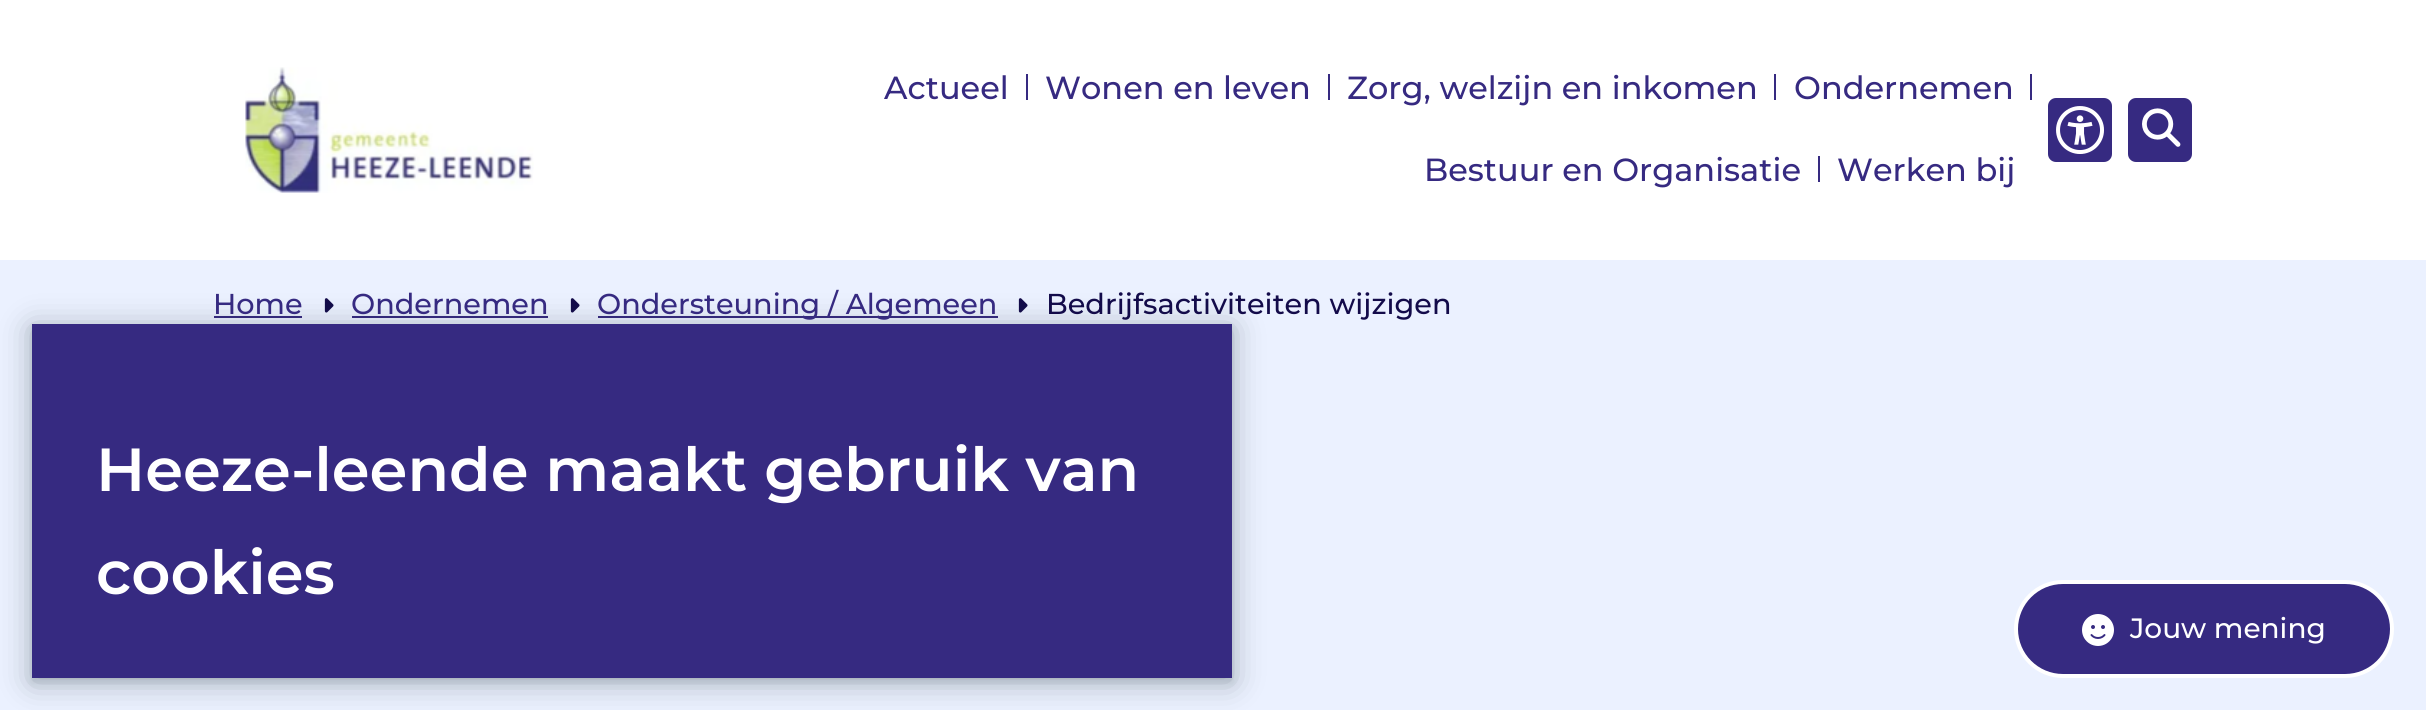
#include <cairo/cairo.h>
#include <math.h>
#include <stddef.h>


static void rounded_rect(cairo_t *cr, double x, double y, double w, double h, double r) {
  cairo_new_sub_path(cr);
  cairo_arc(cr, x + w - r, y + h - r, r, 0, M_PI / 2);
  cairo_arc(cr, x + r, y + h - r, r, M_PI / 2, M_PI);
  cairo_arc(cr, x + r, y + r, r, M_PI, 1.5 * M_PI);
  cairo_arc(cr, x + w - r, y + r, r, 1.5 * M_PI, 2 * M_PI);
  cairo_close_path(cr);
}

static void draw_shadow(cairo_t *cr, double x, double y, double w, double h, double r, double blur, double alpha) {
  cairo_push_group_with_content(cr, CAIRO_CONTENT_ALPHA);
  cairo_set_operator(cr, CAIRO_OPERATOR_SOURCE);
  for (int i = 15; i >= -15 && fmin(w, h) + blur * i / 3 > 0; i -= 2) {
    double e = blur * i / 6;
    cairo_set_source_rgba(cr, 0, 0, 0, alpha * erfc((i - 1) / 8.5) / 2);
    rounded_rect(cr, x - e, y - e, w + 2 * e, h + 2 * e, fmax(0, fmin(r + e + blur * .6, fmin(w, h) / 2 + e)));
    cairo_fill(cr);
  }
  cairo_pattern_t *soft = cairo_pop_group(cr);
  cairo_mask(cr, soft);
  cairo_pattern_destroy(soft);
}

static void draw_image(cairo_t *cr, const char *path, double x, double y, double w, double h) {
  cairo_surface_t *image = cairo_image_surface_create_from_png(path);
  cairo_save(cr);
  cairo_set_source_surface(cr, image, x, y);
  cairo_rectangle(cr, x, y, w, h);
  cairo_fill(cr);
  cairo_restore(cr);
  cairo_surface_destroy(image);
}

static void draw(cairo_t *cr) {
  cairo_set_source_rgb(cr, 235 / 255.0, 241 / 255.0, 1);
  cairo_paint(cr);
  cairo_set_source_rgb(cr, 1, 1, 1);
  cairo_rectangle(cr, 0, 0, 2426, 260);
  cairo_fill(cr);
  draw_image(cr, "images/1.png", 245, 67, 289, 126);
  cairo_set_source_rgb(cr, 54 / 255.0, 42 / 255.0, 129 / 255.0);
  cairo_rectangle(cr, 1026, 74, 2, 26);
  cairo_fill(cr);
  cairo_rectangle(cr, 1328, 74, 2, 26);
  cairo_fill(cr);
  cairo_rectangle(cr, 1774, 74, 2, 26);
  cairo_fill(cr);
  cairo_rectangle(cr, 2030, 74, 2, 26);
  cairo_fill(cr);
  cairo_rectangle(cr, 1818, 156, 2, 26);
  cairo_fill(cr);
  rounded_rect(cr, 2048, 98, 64, 64, 8);
  cairo_fill(cr);
  draw_image(cr, "images/2.png", 2056, 106, 48, 48);
  rounded_rect(cr, 2128, 98, 64, 64, 8);
  cairo_fill(cr);
  draw_image(cr, "images/3.png", 2142, 108, 39, 39);
  cairo_rectangle(cr, 214, 316, 88, 2);
  cairo_fill(cr);
  draw_image(cr, "images/4.png", 324, 298, 10, 15);
  cairo_rectangle(cr, 352, 316, 196, 2);
  cairo_fill(cr);
  draw_image(cr, "images/4.png", 570, 298, 10, 15);
  cairo_rectangle(cr, 598, 316, 400, 2);
  cairo_fill(cr);
  draw_image(cr, "images/4.png", 1018, 298, 10, 15);
  cairo_set_source_rgb(cr, 14 / 255.0, 30 / 255.0, 37 / 255.0);
  draw_shadow(cr, 32, 328, 1200, 354, 0, 16, 0.32);
  draw_shadow(cr, 32, 328, 1200, 354, 0, 4, 0.12);
  cairo_set_source_rgb(cr, 54 / 255.0, 42 / 255.0, 129 / 255.0);
  cairo_rectangle(cr, 32, 324, 1200, 354);
  cairo_fill(cr);
  rounded_rect(cr, 2016, 582, 376, 94, 47);
  cairo_fill_preserve(cr);
  cairo_set_source_rgb(cr, 1, 1, 1);
  cairo_set_line_width(cr, 4);
  cairo_stroke(cr);
  draw_image(cr, "images/5.png", 2082, 614, 32, 32);
  cairo_select_font_face(cr, "Montserrat Thin", CAIRO_FONT_SLANT_NORMAL, CAIRO_FONT_WEIGHT_NORMAL);
  cairo_set_font_size(cr, 32);
  cairo_set_source_rgb(cr, 54 / 255.0, 42 / 255.0, 129 / 255.0);
  cairo_move_to(cr, 884, 99);
  cairo_show_text(cr, "Actueel");
  cairo_move_to(cr, 1045, 99);
  cairo_show_text(cr, "Wonen en leven");
  cairo_move_to(cr, 1347, 99);
  cairo_show_text(cr, "Zorg, welzijn en inkomen");
  cairo_move_to(cr, 1794, 99);
  cairo_show_text(cr, "Ondernemen");
  cairo_move_to(cr, 1424, 181);
  cairo_show_text(cr, "Bestuur en Organisatie");
  cairo_move_to(cr, 1837, 181);
  cairo_show_text(cr, "Werken bij");
  cairo_set_font_size(cr, 28.75);
  cairo_move_to(cr, 213, 314);
  cairo_show_text(cr, "Home");
  cairo_move_to(cr, 351, 314);
  cairo_show_text(cr, "Ondernemen");
  cairo_move_to(cr, 597, 314);
  cairo_show_text(cr, "Ondersteuning / Algemeen");
  cairo_set_source_rgb(cr, 19 / 255.0, 11 / 255.0, 74 / 255.0);
  cairo_move_to(cr, 1046, 314);
  cairo_show_text(cr, "Bedrijfsactiviteiten wijzigen");
  cairo_select_font_face(cr, "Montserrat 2 Thin", CAIRO_FONT_SLANT_NORMAL, CAIRO_FONT_WEIGHT_NORMAL);
  cairo_set_font_size(cr, 60.75);
  cairo_set_source_rgb(cr, 1, 1, 1);
  cairo_move_to(cr, 96, 491);
  cairo_show_text(cr, "Heeze-leende maakt gebruik van");
  cairo_move_to(cr, 96, 594);
  cairo_show_text(cr, "cookies");
  cairo_select_font_face(cr, "Montserrat Thin", CAIRO_FONT_SLANT_NORMAL, CAIRO_FONT_WEIGHT_NORMAL);
  cairo_set_font_size(cr, 28);
  cairo_move_to(cr, 2130, 638);
  cairo_show_text(cr, "Jouw mening");
}

int main(void) {
  cairo_surface_t *surface = cairo_image_surface_create(CAIRO_FORMAT_RGB24, 2426, 710);
  cairo_t *cr = cairo_create(surface);
  cairo_font_options_t *options = cairo_font_options_create();
  cairo_font_options_set_hint_metrics(options, CAIRO_HINT_METRICS_OFF);
  cairo_font_options_set_hint_style(options, CAIRO_HINT_STYLE_NONE);
  cairo_set_font_options(cr, options);
  cairo_set_miter_limit(cr, 4);
  draw(cr);
  cairo_surface_write_to_png(surface, "out.png");
  cairo_font_options_destroy(options);
  cairo_destroy(cr);
  cairo_surface_destroy(surface);
  return 0;
}
